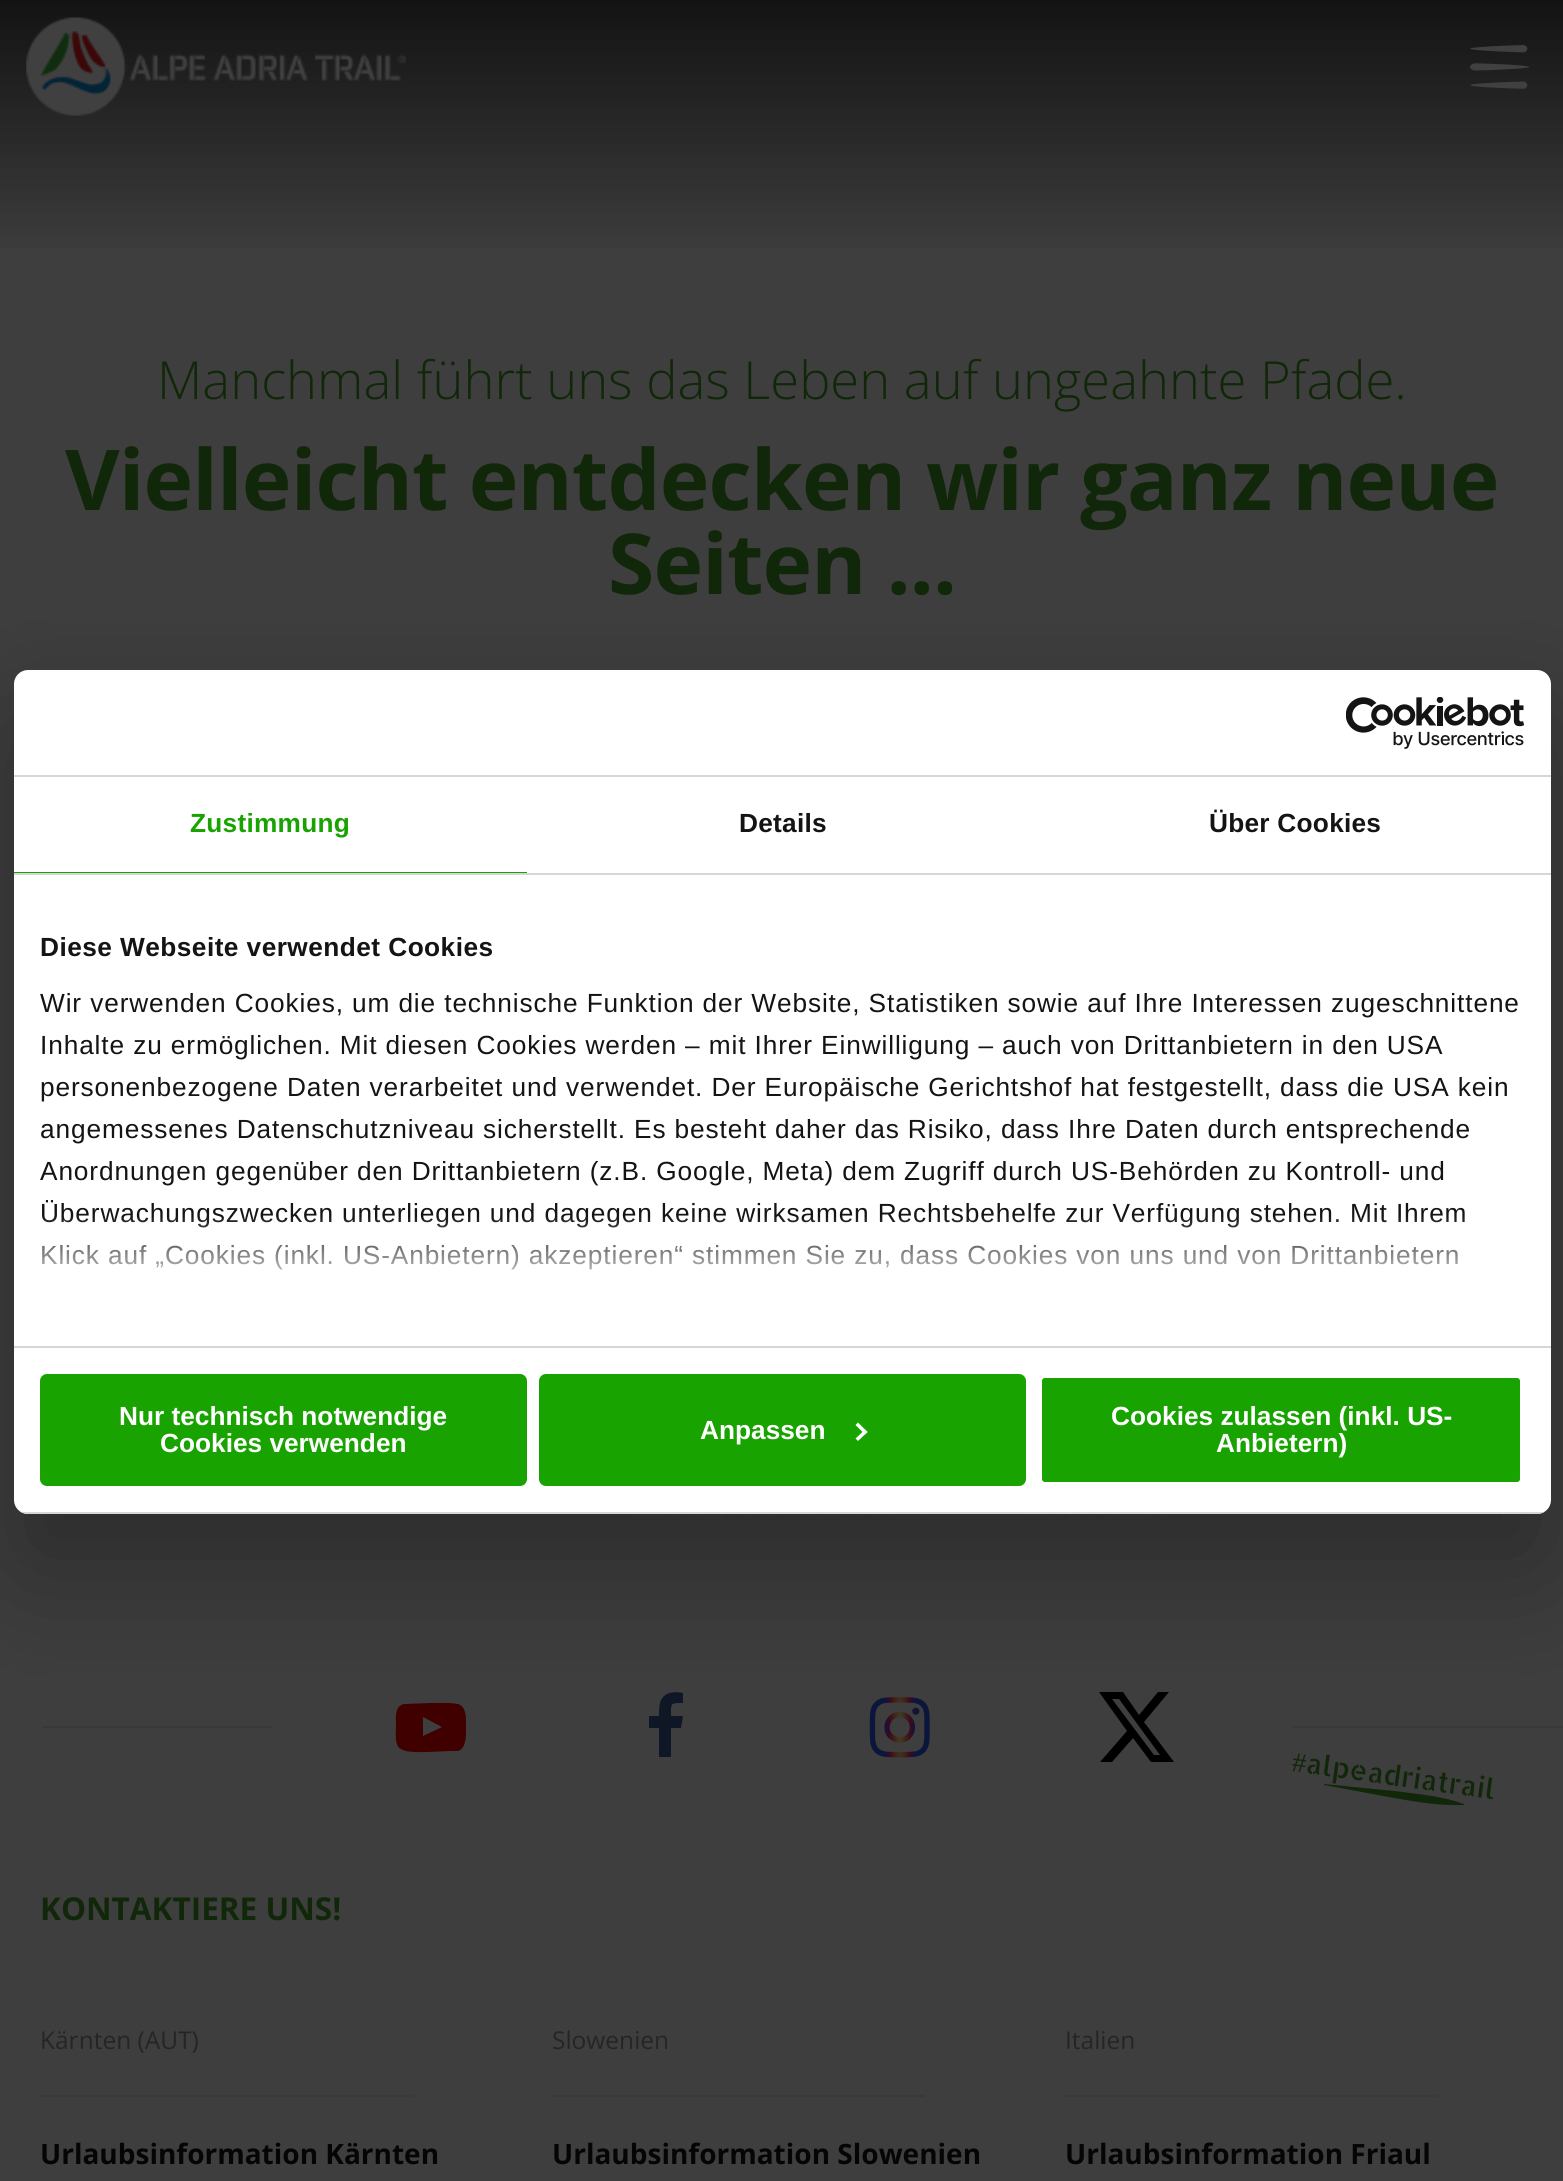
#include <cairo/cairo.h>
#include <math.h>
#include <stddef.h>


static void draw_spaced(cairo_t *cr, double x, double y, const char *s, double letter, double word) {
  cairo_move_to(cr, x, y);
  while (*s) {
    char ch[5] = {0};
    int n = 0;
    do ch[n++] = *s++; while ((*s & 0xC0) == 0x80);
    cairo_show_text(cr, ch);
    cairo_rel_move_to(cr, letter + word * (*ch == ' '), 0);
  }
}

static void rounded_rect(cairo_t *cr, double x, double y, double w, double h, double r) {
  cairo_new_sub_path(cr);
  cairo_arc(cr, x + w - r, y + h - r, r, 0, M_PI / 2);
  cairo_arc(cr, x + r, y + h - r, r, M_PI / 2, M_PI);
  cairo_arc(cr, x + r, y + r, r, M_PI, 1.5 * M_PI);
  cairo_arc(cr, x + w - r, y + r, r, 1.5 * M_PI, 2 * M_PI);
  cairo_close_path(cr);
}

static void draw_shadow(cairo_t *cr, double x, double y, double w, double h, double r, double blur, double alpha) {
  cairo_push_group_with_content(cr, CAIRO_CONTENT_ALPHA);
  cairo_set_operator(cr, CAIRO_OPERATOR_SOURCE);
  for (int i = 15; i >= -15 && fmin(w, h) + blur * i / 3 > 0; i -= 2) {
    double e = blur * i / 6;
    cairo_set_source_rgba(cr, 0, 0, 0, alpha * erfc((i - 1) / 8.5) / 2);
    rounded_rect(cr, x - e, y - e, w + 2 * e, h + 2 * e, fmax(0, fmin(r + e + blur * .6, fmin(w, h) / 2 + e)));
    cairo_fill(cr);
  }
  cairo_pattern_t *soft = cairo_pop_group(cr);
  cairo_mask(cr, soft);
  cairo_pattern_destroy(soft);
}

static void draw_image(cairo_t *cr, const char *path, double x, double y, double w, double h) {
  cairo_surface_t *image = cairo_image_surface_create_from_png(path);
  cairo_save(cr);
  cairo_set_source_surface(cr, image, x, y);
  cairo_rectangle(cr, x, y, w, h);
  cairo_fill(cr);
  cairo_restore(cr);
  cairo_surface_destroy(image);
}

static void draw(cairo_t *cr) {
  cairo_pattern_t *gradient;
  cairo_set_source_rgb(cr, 62 / 255.0, 62 / 255.0, 62 / 255.0);
  cairo_paint(cr);
  gradient = cairo_pattern_create_linear(782, 0, 782, 263);
  cairo_pattern_add_color_stop_rgba(gradient, 0, 19 / 255.0, 19 / 255.0, 19 / 255.0, 1);
  cairo_pattern_add_color_stop_rgba(gradient, 1, 62 / 255.0, 62 / 255.0, 62 / 255.0, 1);
  cairo_set_source(cr, gradient);
  cairo_pattern_destroy(gradient);
  cairo_rectangle(cr, 0, 0, 1563, 248);
  cairo_fill(cr);
  draw_image(cr, "images/1.png", 26, 17, 380, 99);
  draw_image(cr, "images/2.png", 1470, 45, 60, 44);
  draw_image(cr, "images/3.png", 33, 1514, 1487, 7);
  cairo_set_source_rgb(cr, 57 / 255.0, 57 / 255.0, 56 / 255.0);
  cairo_rectangle(cr, 42, 1726, 1521, 2);
  cairo_fill(cr);
  cairo_set_source_rgb(cr, 62 / 255.0, 62 / 255.0, 62 / 255.0);
  cairo_rectangle(cr, 273, 1726, 1019, 2);
  cairo_fill(cr);
  cairo_set_source_rgb(cr, 64 / 255.0, 0, 0);
  cairo_new_path(cr);
  cairo_move_to(cr, 423, 1736);
  cairo_line_to(cr, 442, 1727);
  cairo_line_to(cr, 423, 1717);
  cairo_close_path(cr);
  cairo_move_to(cr, 430, 1703);
  cairo_line_to(cr, 450, 1703);
  cairo_line_to(cr, 458, 1704);
  cairo_curve_to(cr, 467, 1707, 466, 1719, 466, 1726);
  cairo_curve_to(cr, 466, 1734, 467, 1748, 458, 1751);
  cairo_line_to(cr, 450, 1751);
  cairo_line_to(cr, 428, 1752);
  cairo_curve_to(cr, 422, 1752, 406, 1753, 401, 1749);
  cairo_curve_to(cr, 394, 1746, 396, 1732, 396, 1726);
  cairo_curve_to(cr, 396, 1719, 394, 1706, 404, 1704);
  cairo_close_path(cr);
  cairo_fill(cr);
  cairo_set_source_rgb(cr, 15 / 255.0, 22 / 255.0, 38 / 255.0);
  cairo_new_path(cr);
  cairo_move_to(cr, 683, 1693);
  cairo_line_to(cr, 683, 1703);
  cairo_curve_to(cr, 670, 1703, 671, 1703, 671, 1716);
  cairo_line_to(cr, 683, 1716);
  cairo_line_to(cr, 681, 1728);
  cairo_line_to(cr, 671, 1728);
  cairo_line_to(cr, 671, 1757);
  cairo_line_to(cr, 659, 1757);
  cairo_line_to(cr, 659, 1728);
  cairo_line_to(cr, 649, 1728);
  cairo_line_to(cr, 649, 1716);
  cairo_line_to(cr, 659, 1716);
  cairo_curve_to(cr, 659, 1712, 659, 1707, 660, 1703);
  cairo_curve_to(cr, 663, 1692, 674, 1691, 683, 1693);
  cairo_close_path(cr);
  cairo_fill(cr);
  draw_image(cr, "images/4.png", 869, 1697, 61, 61);
  cairo_set_source_rgb(cr, 0, 0, 0);
  cairo_new_path(cr);
  cairo_move_to(cr, 1158, 1692);
  cairo_line_to(cr, 1169, 1692);
  cairo_line_to(cr, 1144, 1722);
  cairo_line_to(cr, 1174, 1762);
  cairo_line_to(cr, 1151, 1762);
  cairo_line_to(cr, 1133, 1738);
  cairo_line_to(cr, 1112, 1762);
  cairo_line_to(cr, 1100, 1762);
  cairo_line_to(cr, 1127, 1731);
  cairo_line_to(cr, 1099, 1692);
  cairo_line_to(cr, 1123, 1692);
  cairo_line_to(cr, 1139, 1715);
  cairo_close_path(cr);
  cairo_move_to(cr, 1154, 1755);
  cairo_line_to(cr, 1160, 1755);
  cairo_line_to(cr, 1119, 1699);
  cairo_line_to(cr, 1112, 1699);
  cairo_close_path(cr);
  cairo_fill(cr);
  cairo_set_source_rgb(cr, 17 / 255.0, 39 / 255.0, 9 / 255.0);
  cairo_new_path(cr);
  cairo_move_to(cr, 1324, 1784);
  cairo_line_to(cr, 1394, 1791);
  cairo_curve_to(cr, 1418, 1794, 1442, 1796, 1464, 1804);
  cairo_line_to(cr, 1464, 1805);
  cairo_curve_to(cr, 1440, 1806, 1417, 1802, 1394, 1798);
  cairo_line_to(cr, 1324, 1785);
  cairo_close_path(cr);
  cairo_fill(cr);
  cairo_set_source_rgb(cr, 57 / 255.0, 57 / 255.0, 56 / 255.0);
  cairo_rectangle(cr, 40, 2095, 373, 2);
  cairo_fill(cr);
  cairo_rectangle(cr, 553, 2095, 371, 2);
  cairo_fill(cr);
  cairo_rectangle(cr, 1064, 2095, 373, 2);
  cairo_fill(cr);
  cairo_set_source_rgb(cr, 0, 0, 0);
  draw_shadow(cr, 14, 726, 1537, 844, 14, 59.5, 0.3);
  cairo_set_source_rgb(cr, 1, 1, 1);
  rounded_rect(cr, 14, 670, 1537, 844, 14);
  cairo_fill(cr);
  cairo_set_source_rgb(cr, 214 / 255.0, 214 / 255.0, 214 / 255.0);
  cairo_rectangle(cr, 14, 775, 1537, 2);
  cairo_fill(cr);
  draw_image(cr, "images/5.png", 1346, 697, 178, 52);
  cairo_rectangle(cr, 14, 873, 1537, 2);
  cairo_fill(cr);
  cairo_set_source_rgb(cr, 24 / 255.0, 163 / 255.0, 0);
  cairo_rectangle(cr, 14, 872, 513, 1);
  cairo_fill(cr);
  cairo_set_source_rgb(cr, 214 / 255.0, 214 / 255.0, 214 / 255.0);
  cairo_rectangle(cr, 14, 1346, 1537, 2);
  cairo_fill(cr);
  cairo_save(cr);
  rounded_rect(cr, 14, 670, 1537, 844, 14);
  cairo_clip(cr);
  cairo_rectangle(cr, 14, 1512, 1537, 2);
  cairo_fill(cr);
  cairo_restore(cr);
  cairo_set_source_rgb(cr, 24 / 255.0, 163 / 255.0, 0);
  rounded_rect(cr, 42, 1376, 483, 108, 5);
  cairo_fill_preserve(cr);
  cairo_set_line_width(cr, 4);
  cairo_stroke(cr);
  rounded_rect(cr, 541, 1376, 483, 108, 5);
  cairo_fill_preserve(cr);
  cairo_stroke(cr);
  cairo_set_source_rgb(cr, 1, 1, 1);
  cairo_new_path(cr);
  cairo_move_to(cr, 858, 1422.5);
  cairo_line_to(cr, 867.5, 1432);
  cairo_line_to(cr, 865, 1434.5);
  cairo_line_to(cr, 855.5, 1425);
  cairo_close_path(cr);
  cairo_fill(cr);
  cairo_new_path(cr);
  cairo_move_to(cr, 865, 1429.5);
  cairo_line_to(cr, 867.5, 1432);
  cairo_line_to(cr, 858, 1441);
  cairo_line_to(cr, 855.5, 1438.5);
  cairo_close_path(cr);
  cairo_fill(cr);
  cairo_set_source_rgb(cr, 24 / 255.0, 163 / 255.0, 0);
  rounded_rect(cr, 1040, 1376, 482, 108, 5);
  cairo_fill_preserve(cr);
  cairo_set_source_rgb(cr, 1, 1, 1);
  cairo_stroke(cr);
  cairo_select_font_face(cr, "Open Sans Light", CAIRO_FONT_SLANT_NORMAL, CAIRO_FONT_WEIGHT_NORMAL);
  cairo_set_font_size(cr, 52.5);
  cairo_set_source_rgb(cr, 17 / 255.0, 39 / 255.0, 9 / 255.0);
  cairo_move_to(cr, 157, 399);
  cairo_show_text(cr, "Manchmal führt uns das Leben auf ungeahnte Pfade.");
  cairo_select_font_face(cr, "Open Sans", CAIRO_FONT_SLANT_NORMAL, CAIRO_FONT_WEIGHT_BOLD);
  cairo_set_font_size(cr, 84);
  draw_spaced(cr, 65, 510, "Vielleicht entdecken wir ganz neue", -0.85, 0);
  draw_spaced(cr, 608, 594, "Seiten ...", -0.85, 0);
  cairo_select_font_face(cr, "Liberation Serif", CAIRO_FONT_SLANT_NORMAL, CAIRO_FONT_WEIGHT_NORMAL);
  cairo_set_font_size(cr, 28);
  cairo_save(cr);
  cairo_translate(cr, 1291, 1771);
  cairo_rotate(cr, 8 * M_PI / 180);
  cairo_move_to(cr, 0, 0);
  cairo_show_text(cr, "#");
  cairo_restore(cr);
  cairo_select_font_face(cr, "Allerta Stencil", CAIRO_FONT_SLANT_NORMAL, CAIRO_FONT_WEIGHT_NORMAL);
  cairo_save(cr);
  cairo_translate(cr, 1305, 1773);
  cairo_rotate(cr, 8 * M_PI / 180);
  cairo_move_to(cr, 0, 0);
  cairo_show_text(cr, "alpeadriatrail");
  cairo_restore(cr);
  cairo_select_font_face(cr, "Open Sans", CAIRO_FONT_SLANT_NORMAL, CAIRO_FONT_WEIGHT_BOLD);
  cairo_set_font_size(cr, 31.5);
  cairo_move_to(cr, 40, 1920);
  cairo_show_text(cr, "KONTAKTIERE UNS!");
  cairo_select_font_face(cr, "Open Sans", CAIRO_FONT_SLANT_NORMAL, CAIRO_FONT_WEIGHT_NORMAL);
  cairo_set_font_size(cr, 24.5);
  cairo_set_source_rgb(cr, 37 / 255.0, 37 / 255.0, 38 / 255.0);
  cairo_move_to(cr, 40, 2049);
  cairo_show_text(cr, "Kärnten (AUT)");
  cairo_select_font_face(cr, "Open Sans", CAIRO_FONT_SLANT_NORMAL, CAIRO_FONT_WEIGHT_BOLD);
  cairo_set_font_size(cr, 28);
  cairo_set_source_rgb(cr, 5 / 255.0, 5 / 255.0, 5 / 255.0);
  cairo_move_to(cr, 40, 2164);
  cairo_show_text(cr, "Urlaubsinformation Kärnten");
  cairo_select_font_face(cr, "Open Sans", CAIRO_FONT_SLANT_NORMAL, CAIRO_FONT_WEIGHT_NORMAL);
  cairo_set_font_size(cr, 24.5);
  cairo_set_source_rgb(cr, 37 / 255.0, 37 / 255.0, 38 / 255.0);
  cairo_move_to(cr, 552, 2049);
  cairo_show_text(cr, "Slowenien");
  cairo_select_font_face(cr, "Open Sans", CAIRO_FONT_SLANT_NORMAL, CAIRO_FONT_WEIGHT_BOLD);
  cairo_set_font_size(cr, 28);
  cairo_set_source_rgb(cr, 5 / 255.0, 5 / 255.0, 5 / 255.0);
  cairo_move_to(cr, 552, 2164);
  cairo_show_text(cr, "Urlaubsinformation Slowenien");
  cairo_select_font_face(cr, "Open Sans", CAIRO_FONT_SLANT_NORMAL, CAIRO_FONT_WEIGHT_NORMAL);
  cairo_set_font_size(cr, 24.5);
  cairo_set_source_rgb(cr, 37 / 255.0, 37 / 255.0, 38 / 255.0);
  cairo_move_to(cr, 1065, 2049);
  cairo_show_text(cr, "Italien");
  cairo_select_font_face(cr, "Open Sans", CAIRO_FONT_SLANT_NORMAL, CAIRO_FONT_WEIGHT_BOLD);
  cairo_set_font_size(cr, 28);
  cairo_set_source_rgb(cr, 5 / 255.0, 5 / 255.0, 5 / 255.0);
  cairo_move_to(cr, 1065, 2164);
  cairo_show_text(cr, "Urlaubsinformation Friaul");
  cairo_select_font_face(cr, "Liberation Sans", CAIRO_FONT_SLANT_NORMAL, CAIRO_FONT_WEIGHT_BOLD);
  cairo_set_font_size(cr, 26.25);
  cairo_set_source_rgb(cr, 24 / 255.0, 163 / 255.0, 0);
  draw_spaced(cr, 190, 832, "Zustimmung", 0.25, 0);
  cairo_set_source_rgb(cr, 20 / 255.0, 20 / 255.0, 20 / 255.0);
  draw_spaced(cr, 739, 832, "Details", 0.25, 0);
  draw_spaced(cr, 1209, 832, "Über Cookies", 0.25, 0);
  draw_spaced(cr, 40, 956, "Diese Webseite verwendet Cookies", 0.45, 0);
  cairo_select_font_face(cr, "Liberation Sans", CAIRO_FONT_SLANT_NORMAL, CAIRO_FONT_WEIGHT_NORMAL);
  draw_spaced(cr, 40, 1012, "Wir verwenden Cookies, um die technische Funktion der Website, Statistiken sowie auf Ihre Interessen zugeschnittene", 0.88, 0);
  draw_spaced(cr, 40, 1054, "Inhalte zu ermöglichen. Mit diesen Cookies werden – mit Ihrer Einwilligung – auch von Drittanbietern in den USA", 0.88, 0);
  draw_spaced(cr, 40, 1096, "personenbezogene Daten verarbeitet und verwendet. Der Europäische Gerichtshof hat festgestellt, dass die USA kein", 0.88, 0);
  draw_spaced(cr, 40, 1138, "angemessenes Datenschutzniveau sicherstellt. Es besteht daher das Risiko, dass Ihre Daten durch entsprechende", 0.88, 0);
  draw_spaced(cr, 40, 1180, "Anordnungen gegenüber den Drittanbietern (z.B. Google, Meta) dem Zugriff durch US-Behörden zu Kontroll- und", 0.88, 0);
  draw_spaced(cr, 40, 1222, "Überwachungszwecken unterliegen und dagegen keine wirksamen Rechtsbehelfe zur Verfügung stehen. Mit Ihrem", 0.88, 0);
  draw_spaced(cr, 40, 1264, "Klick auf „Cookies (inkl. US-Anbietern) akzeptieren“ stimmen Sie zu, dass Cookies von uns und von Drittanbietern", 0.88, 0);
  gradient = cairo_pattern_create_linear(771, 1346, 771, 1215);
  cairo_pattern_add_color_stop_rgba(gradient, 0, 1, 1, 1, 1);
  cairo_pattern_add_color_stop_rgba(gradient, 0.5, 1, 1, 1, 0.8);
  cairo_pattern_add_color_stop_rgba(gradient, 1, 1, 1, 1, 0);
  cairo_set_source(cr, gradient);
  cairo_pattern_destroy(gradient);
  cairo_rectangle(cr, 42, 1217, 1423, 53);
  cairo_fill(cr);
  cairo_select_font_face(cr, "Liberation Sans", CAIRO_FONT_SLANT_NORMAL, CAIRO_FONT_WEIGHT_BOLD);
  cairo_set_source_rgb(cr, 1, 1, 1);
  cairo_move_to(cr, 119, 1425);
  cairo_show_text(cr, "Nur technisch notwendige");
  cairo_move_to(cr, 160, 1452);
  cairo_show_text(cr, "Cookies verwenden");
  cairo_move_to(cr, 700, 1439);
  cairo_show_text(cr, "Anpassen");
  cairo_move_to(cr, 1111, 1425);
  cairo_show_text(cr, "Cookies zulassen (inkl. US-");
  cairo_move_to(cr, 1216, 1452);
  cairo_show_text(cr, "Anbietern)");
}

int main(void) {
  cairo_surface_t *surface = cairo_image_surface_create(CAIRO_FORMAT_RGB24, 1563, 2181);
  cairo_t *cr = cairo_create(surface);
  cairo_font_options_t *options = cairo_font_options_create();
  cairo_font_options_set_hint_metrics(options, CAIRO_HINT_METRICS_OFF);
  cairo_font_options_set_hint_style(options, CAIRO_HINT_STYLE_NONE);
  cairo_set_font_options(cr, options);
  cairo_set_miter_limit(cr, 4);
  draw(cr);
  cairo_surface_write_to_png(surface, "out.png");
  cairo_font_options_destroy(options);
  cairo_destroy(cr);
  cairo_surface_destroy(surface);
  return 0;
}
